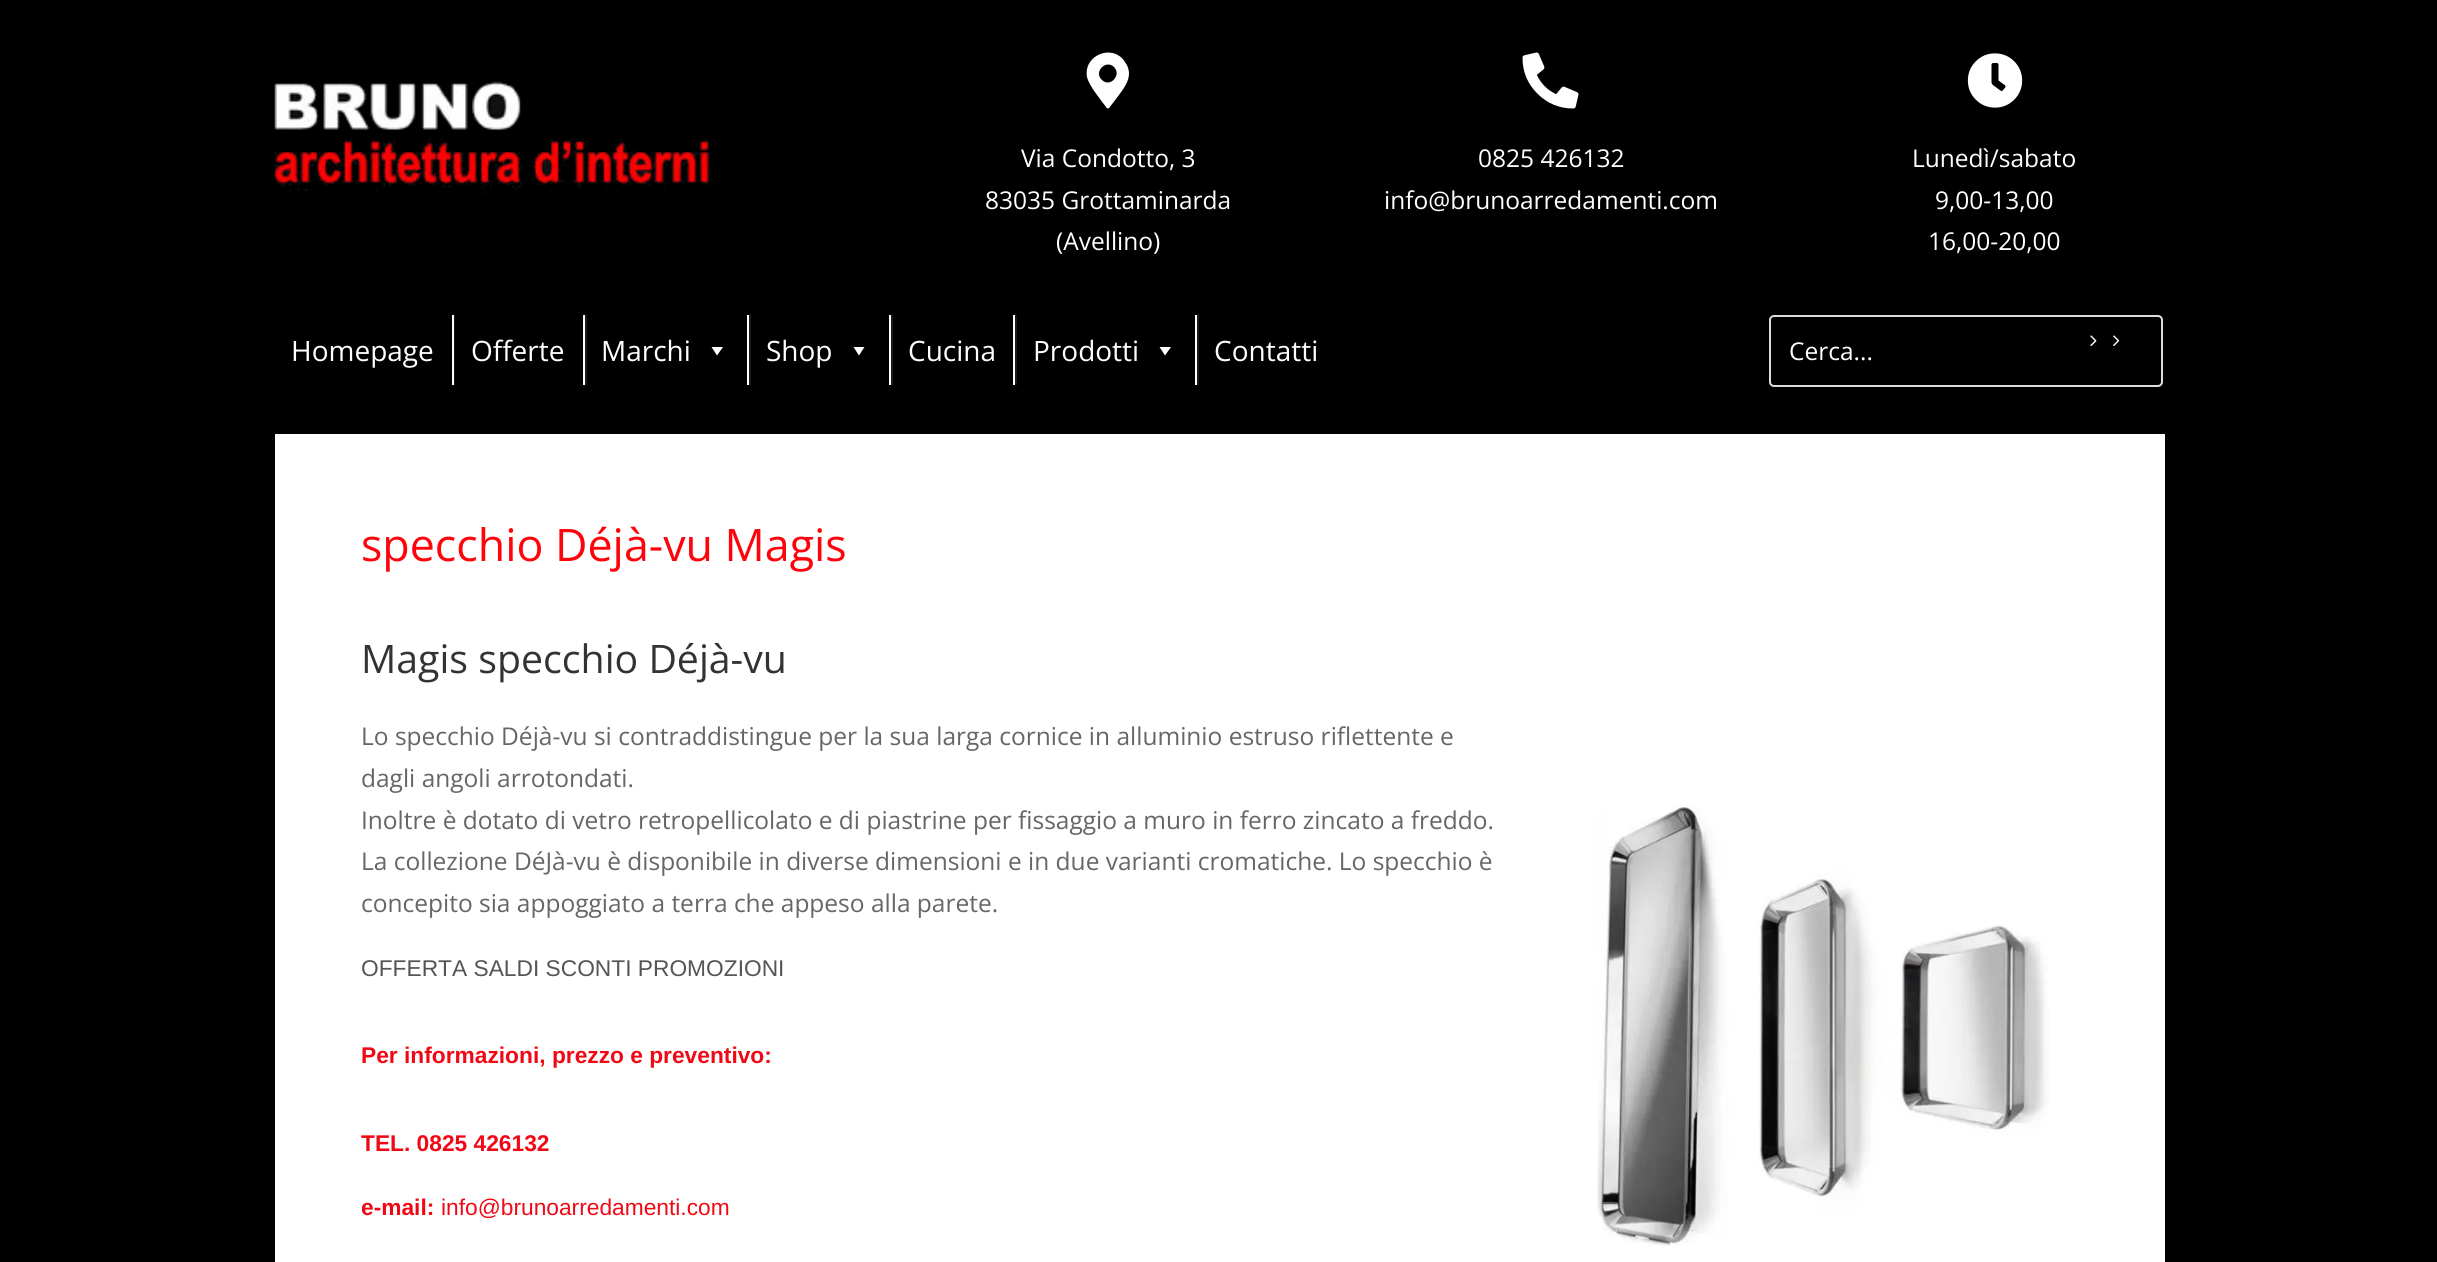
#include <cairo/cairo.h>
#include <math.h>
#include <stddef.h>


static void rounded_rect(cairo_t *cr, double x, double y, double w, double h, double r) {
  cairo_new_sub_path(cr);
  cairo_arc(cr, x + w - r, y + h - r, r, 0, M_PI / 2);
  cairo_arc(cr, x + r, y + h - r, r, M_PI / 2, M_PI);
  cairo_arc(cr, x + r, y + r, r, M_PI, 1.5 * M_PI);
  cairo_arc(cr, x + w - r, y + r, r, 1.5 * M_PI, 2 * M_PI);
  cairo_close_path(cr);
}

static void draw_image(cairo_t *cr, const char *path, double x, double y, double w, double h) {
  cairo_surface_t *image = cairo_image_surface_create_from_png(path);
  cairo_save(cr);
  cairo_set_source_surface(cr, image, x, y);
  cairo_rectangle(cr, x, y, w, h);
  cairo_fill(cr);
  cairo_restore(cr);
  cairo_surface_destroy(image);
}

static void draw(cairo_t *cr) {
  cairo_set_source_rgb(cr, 0, 0, 0);
  cairo_paint(cr);
  draw_image(cr, "images/1.png", 274, 81, 442, 114);
  cairo_set_source_rgb(cr, 1, 1, 1);
  cairo_new_path(cr);
  cairo_move_to(cr, 1106, 107);
  cairo_curve_to(cr, 1101, 100, 1089, 86, 1087, 77);
  cairo_curve_to(cr, 1083, 55, 1113, 43, 1125, 62);
  cairo_curve_to(cr, 1135, 76, 1124, 88, 1116, 99);
  cairo_line_to(cr, 1109, 108);
  cairo_curve_to(cr, 1108, 109, 1106, 108, 1106, 107);
  cairo_close_path(cr);
  cairo_move_to(cr, 1102, 80);
  cairo_curve_to(cr, 1110, 88, 1122, 75, 1114, 67);
  cairo_curve_to(cr, 1106, 59, 1093, 72, 1102, 80);
  cairo_close_path(cr);
  cairo_fill(cr);
  draw_image(cr, "images/2.png", 1522, 52, 57, 57);
  draw_image(cr, "images/3.png", 1967, 53, 56, 55);
  cairo_set_source_rgb(cr, 26 / 255.0, 26 / 255.0, 26 / 255.0);
  cairo_rectangle(cr, 454, 315, 1, 70);
  cairo_fill(cr);
  cairo_set_source_rgb(cr, 1, 1, 1);
  cairo_rectangle(cr, 452, 315, 2, 70);
  cairo_fill(cr);
  cairo_set_source_rgb(cr, 26 / 255.0, 26 / 255.0, 26 / 255.0);
  cairo_rectangle(cr, 585, 315, 2, 70);
  cairo_fill(cr);
  cairo_set_source_rgb(cr, 1, 1, 1);
  cairo_rectangle(cr, 583, 315, 2, 70);
  cairo_fill(cr);
  cairo_new_path(cr);
  cairo_move_to(cr, 723, 347);
  cairo_line_to(cr, 717, 355.5);
  cairo_line_to(cr, 711.5, 347);
  cairo_close_path(cr);
  cairo_fill(cr);
  cairo_set_source_rgb(cr, 26 / 255.0, 26 / 255.0, 26 / 255.0);
  cairo_rectangle(cr, 749, 315, 2, 70);
  cairo_fill(cr);
  cairo_set_source_rgb(cr, 1, 1, 1);
  cairo_rectangle(cr, 747, 315, 2, 70);
  cairo_fill(cr);
  cairo_new_path(cr);
  cairo_move_to(cr, 864.5, 347);
  cairo_line_to(cr, 859, 355.5);
  cairo_line_to(cr, 853.5, 347);
  cairo_close_path(cr);
  cairo_fill(cr);
  cairo_set_source_rgb(cr, 26 / 255.0, 26 / 255.0, 26 / 255.0);
  cairo_rectangle(cr, 891, 315, 2, 70);
  cairo_fill(cr);
  cairo_set_source_rgb(cr, 1, 1, 1);
  cairo_rectangle(cr, 889, 315, 2, 70);
  cairo_fill(cr);
  cairo_set_source_rgb(cr, 26 / 255.0, 26 / 255.0, 26 / 255.0);
  cairo_rectangle(cr, 1015, 315, 2, 70);
  cairo_fill(cr);
  cairo_set_source_rgb(cr, 1, 1, 1);
  cairo_rectangle(cr, 1013, 315, 2, 70);
  cairo_fill(cr);
  cairo_new_path(cr);
  cairo_move_to(cr, 1171, 347);
  cairo_line_to(cr, 1165, 355.5);
  cairo_line_to(cr, 1159.5, 347);
  cairo_close_path(cr);
  cairo_fill(cr);
  cairo_set_source_rgb(cr, 26 / 255.0, 26 / 255.0, 26 / 255.0);
  cairo_rectangle(cr, 1197, 315, 2, 70);
  cairo_fill(cr);
  cairo_set_source_rgb(cr, 1, 1, 1);
  cairo_rectangle(cr, 1195, 315, 2, 70);
  cairo_fill(cr);
  rounded_rect(cr, 1770, 316, 392, 70, 4);
  cairo_set_source_rgb(cr, 221 / 255.0, 221 / 255.0, 221 / 255.0);
  cairo_stroke(cr);
  draw_image(cr, "images/4.png", 2090, 335, 30, 11);
  cairo_set_source_rgb(cr, 1, 1, 1);
  cairo_rectangle(cr, 275, 434, 1890, 828);
  cairo_fill(cr);
  draw_image(cr, "images/5.png", 1597, 805, 452, 441);
  cairo_select_font_face(cr, "Open Sans", CAIRO_FONT_SLANT_NORMAL, CAIRO_FONT_WEIGHT_NORMAL);
  cairo_set_font_size(cr, 24.5);
  cairo_move_to(cr, 1021, 167);
  cairo_show_text(cr, "Via Condotto, 3");
  cairo_move_to(cr, 985, 209);
  cairo_show_text(cr, "83035 Grottaminarda");
  cairo_move_to(cr, 1056, 250);
  cairo_show_text(cr, "(Avellino)");
  cairo_move_to(cr, 1478, 167);
  cairo_show_text(cr, "0825 426132");
  cairo_move_to(cr, 1384, 209);
  cairo_show_text(cr, "info@brunoarredamenti.com");
  cairo_move_to(cr, 1912, 167);
  cairo_show_text(cr, "Lunedì/sabato");
  cairo_move_to(cr, 1935, 209);
  cairo_show_text(cr, "9,00-13,00");
  cairo_move_to(cr, 1928, 250);
  cairo_show_text(cr, "16,00-20,00");
  cairo_set_font_size(cr, 28);
  cairo_move_to(cr, 291, 361);
  cairo_show_text(cr, "Homepage");
  cairo_move_to(cr, 471, 361);
  cairo_show_text(cr, "Offerte");
  cairo_move_to(cr, 601, 361);
  cairo_show_text(cr, "Marchi");
  cairo_move_to(cr, 766, 361);
  cairo_show_text(cr, "Shop");
  cairo_move_to(cr, 908, 361);
  cairo_show_text(cr, "Cucina");
  cairo_move_to(cr, 1033, 361);
  cairo_show_text(cr, "Prodotti");
  cairo_move_to(cr, 1214, 361);
  cairo_show_text(cr, "Contatti");
  cairo_set_font_size(cr, 24.5);
  cairo_move_to(cr, 1789, 360);
  cairo_show_text(cr, "Cerca...");
  cairo_set_font_size(cr, 44.75);
  cairo_set_source_rgb(cr, 254 / 255.0, 3 / 255.0, 12 / 255.0);
  cairo_move_to(cr, 361, 561);
  cairo_show_text(cr, "specchio Déjà-vu Magis");
  cairo_set_font_size(cr, 39.25);
  cairo_set_source_rgb(cr, 51 / 255.0, 51 / 255.0, 51 / 255.0);
  cairo_move_to(cr, 361, 673);
  cairo_show_text(cr, "Magis specchio Déjà-vu");
  cairo_set_font_size(cr, 24.5);
  cairo_set_source_rgb(cr, 102 / 255.0, 102 / 255.0, 102 / 255.0);
  cairo_move_to(cr, 361, 745);
  cairo_show_text(cr, "Lo specchio Déjà-vu si contraddistingue per la sua larga cornice in alluminio estruso riflettente e");
  cairo_move_to(cr, 361, 787);
  cairo_show_text(cr, "dagli angoli arrotondati.");
  cairo_move_to(cr, 361, 829);
  cairo_show_text(cr, "Inoltre è dotato di vetro retropellicolato e di piastrine per fissaggio a muro in ferro zincato a freddo.");
  cairo_move_to(cr, 361, 870);
  cairo_show_text(cr, "La collezione DéJà-vu è disponibile in diverse dimensioni e in due varianti cromatiche. Lo specchio è");
  cairo_move_to(cr, 361, 912);
  cairo_show_text(cr, "concepito sia appoggiato a terra che appeso alla parete.");
  cairo_select_font_face(cr, "Liberation Sans", CAIRO_FONT_SLANT_NORMAL, CAIRO_FONT_WEIGHT_NORMAL);
  cairo_set_font_size(cr, 22.75);
  cairo_set_source_rgb(cr, 85 / 255.0, 85 / 255.0, 85 / 255.0);
  cairo_move_to(cr, 361, 976);
  cairo_show_text(cr, "OFFERTA SALDI SCONTI PROMOZIONI");
  cairo_select_font_face(cr, "Liberation Sans", CAIRO_FONT_SLANT_NORMAL, CAIRO_FONT_WEIGHT_BOLD);
  cairo_set_source_rgb(cr, 240 / 255.0, 8 / 255.0, 21 / 255.0);
  cairo_move_to(cr, 361, 1063);
  cairo_show_text(cr, "Per informazioni, prezzo e preventivo:");
  cairo_move_to(cr, 361, 1151);
  cairo_show_text(cr, "TEL. 0825 426132");
  cairo_move_to(cr, 361, 1215);
  cairo_show_text(cr, "e-mail:");
  cairo_select_font_face(cr, "Liberation Sans", CAIRO_FONT_SLANT_NORMAL, CAIRO_FONT_WEIGHT_NORMAL);
  cairo_move_to(cr, 441, 1215);
  cairo_show_text(cr, "info@brunoarredamenti.com");
}

int main(void) {
  cairo_surface_t *surface = cairo_image_surface_create(CAIRO_FORMAT_RGB24, 2437, 1262);
  cairo_t *cr = cairo_create(surface);
  cairo_font_options_t *options = cairo_font_options_create();
  cairo_font_options_set_hint_metrics(options, CAIRO_HINT_METRICS_OFF);
  cairo_font_options_set_hint_style(options, CAIRO_HINT_STYLE_NONE);
  cairo_set_font_options(cr, options);
  cairo_set_miter_limit(cr, 4);
  draw(cr);
  cairo_surface_write_to_png(surface, "out.png");
  cairo_font_options_destroy(options);
  cairo_destroy(cr);
  cairo_surface_destroy(surface);
  return 0;
}
